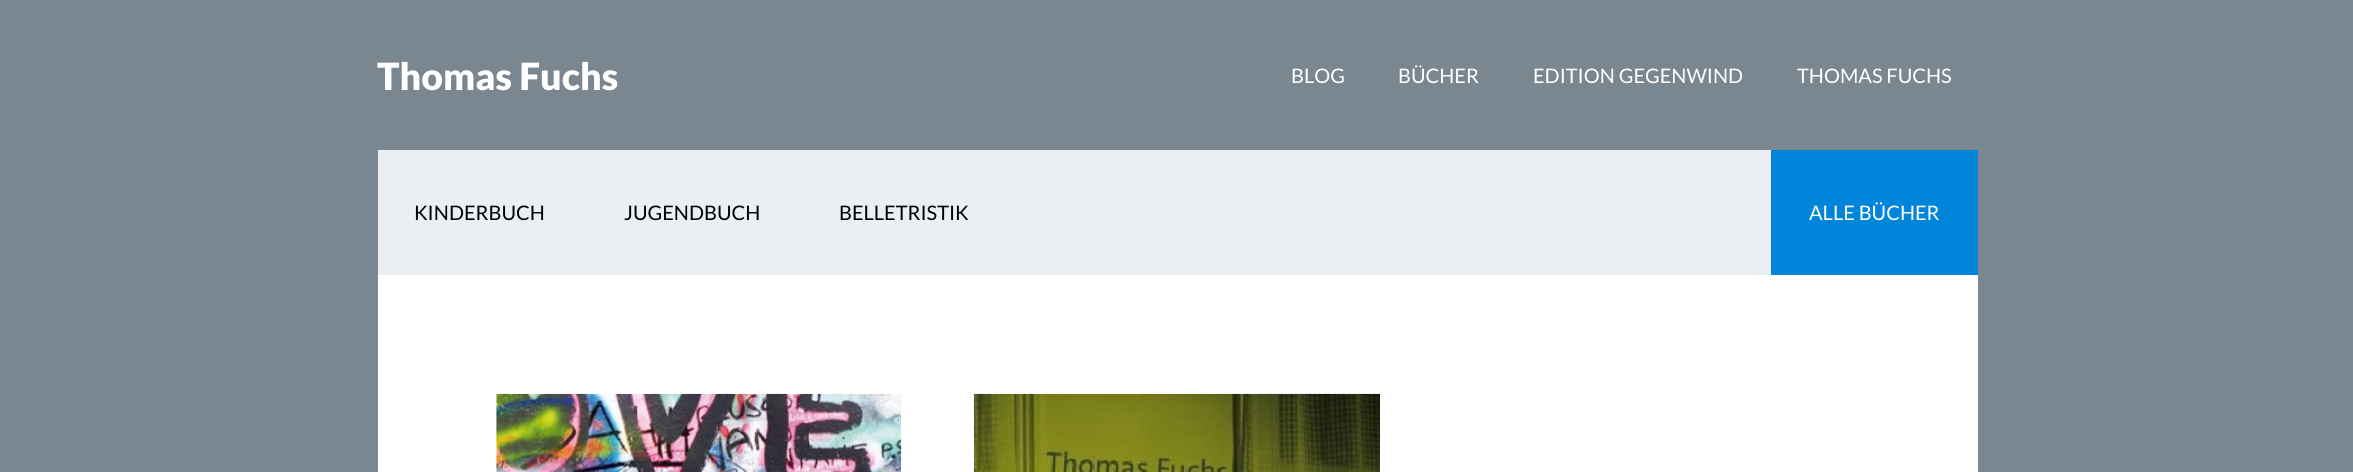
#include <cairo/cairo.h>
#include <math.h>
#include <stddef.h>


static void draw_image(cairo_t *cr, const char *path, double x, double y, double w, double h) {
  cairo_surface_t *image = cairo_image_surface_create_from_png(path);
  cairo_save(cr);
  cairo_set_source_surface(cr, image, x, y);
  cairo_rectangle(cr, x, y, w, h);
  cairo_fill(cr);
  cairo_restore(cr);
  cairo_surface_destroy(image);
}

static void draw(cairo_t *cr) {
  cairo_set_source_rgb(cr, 122 / 255.0, 134 / 255.0, 144 / 255.0);
  cairo_paint(cr);
  cairo_set_source_rgb(cr, 1, 1, 1);
  cairo_rectangle(cr, 378, 275, 1600, 197);
  cairo_fill(cr);
  cairo_set_source_rgb(cr, 234 / 255.0, 239 / 255.0, 244 / 255.0);
  cairo_rectangle(cr, 378, 150, 1393, 125);
  cairo_fill(cr);
  cairo_set_source_rgb(cr, 0, 133 / 255.0, 218 / 255.0);
  cairo_rectangle(cr, 1771, 150, 207, 125);
  cairo_fill(cr);
  draw_image(cr, "images/1.png", 496, 393, 406, 79);
  draw_image(cr, "images/2.png", 973, 393, 407, 79);
  cairo_select_font_face(cr, "Lato Black", CAIRO_FONT_SLANT_NORMAL, CAIRO_FONT_WEIGHT_NORMAL);
  cairo_set_font_size(cr, 37.5);
  cairo_set_source_rgb(cr, 1, 1, 1);
  cairo_move_to(cr, 377, 90);
  cairo_show_text(cr, "Thomas Fuchs");
  cairo_select_font_face(cr, "Lato", CAIRO_FONT_SLANT_NORMAL, CAIRO_FONT_WEIGHT_NORMAL);
  cairo_set_font_size(cr, 20);
  cairo_move_to(cr, 1291, 83);
  cairo_show_text(cr, "BLOG");
  cairo_move_to(cr, 1398, 83);
  cairo_show_text(cr, "BÜCHER");
  cairo_move_to(cr, 1533, 83);
  cairo_show_text(cr, "EDITION GEGENWIND");
  cairo_move_to(cr, 1797, 83);
  cairo_show_text(cr, "THOMAS FUCHS");
  cairo_set_source_rgb(cr, 0, 0, 0);
  cairo_move_to(cr, 414, 220);
  cairo_show_text(cr, "KINDERBUCH");
  cairo_move_to(cr, 624, 220);
  cairo_show_text(cr, "JUGENDBUCH");
  cairo_move_to(cr, 839, 220);
  cairo_show_text(cr, "BELLETRISTIK");
  cairo_set_source_rgb(cr, 1, 1, 1);
  cairo_move_to(cr, 1809, 220);
  cairo_show_text(cr, "ALLE BÜCHER");
}

int main(void) {
  cairo_surface_t *surface = cairo_image_surface_create(CAIRO_FORMAT_RGB24, 2353, 472);
  cairo_t *cr = cairo_create(surface);
  cairo_font_options_t *options = cairo_font_options_create();
  cairo_font_options_set_hint_metrics(options, CAIRO_HINT_METRICS_OFF);
  cairo_font_options_set_hint_style(options, CAIRO_HINT_STYLE_NONE);
  cairo_set_font_options(cr, options);
  cairo_set_miter_limit(cr, 4);
  draw(cr);
  cairo_surface_write_to_png(surface, "out.png");
  cairo_font_options_destroy(options);
  cairo_destroy(cr);
  cairo_surface_destroy(surface);
  return 0;
}
